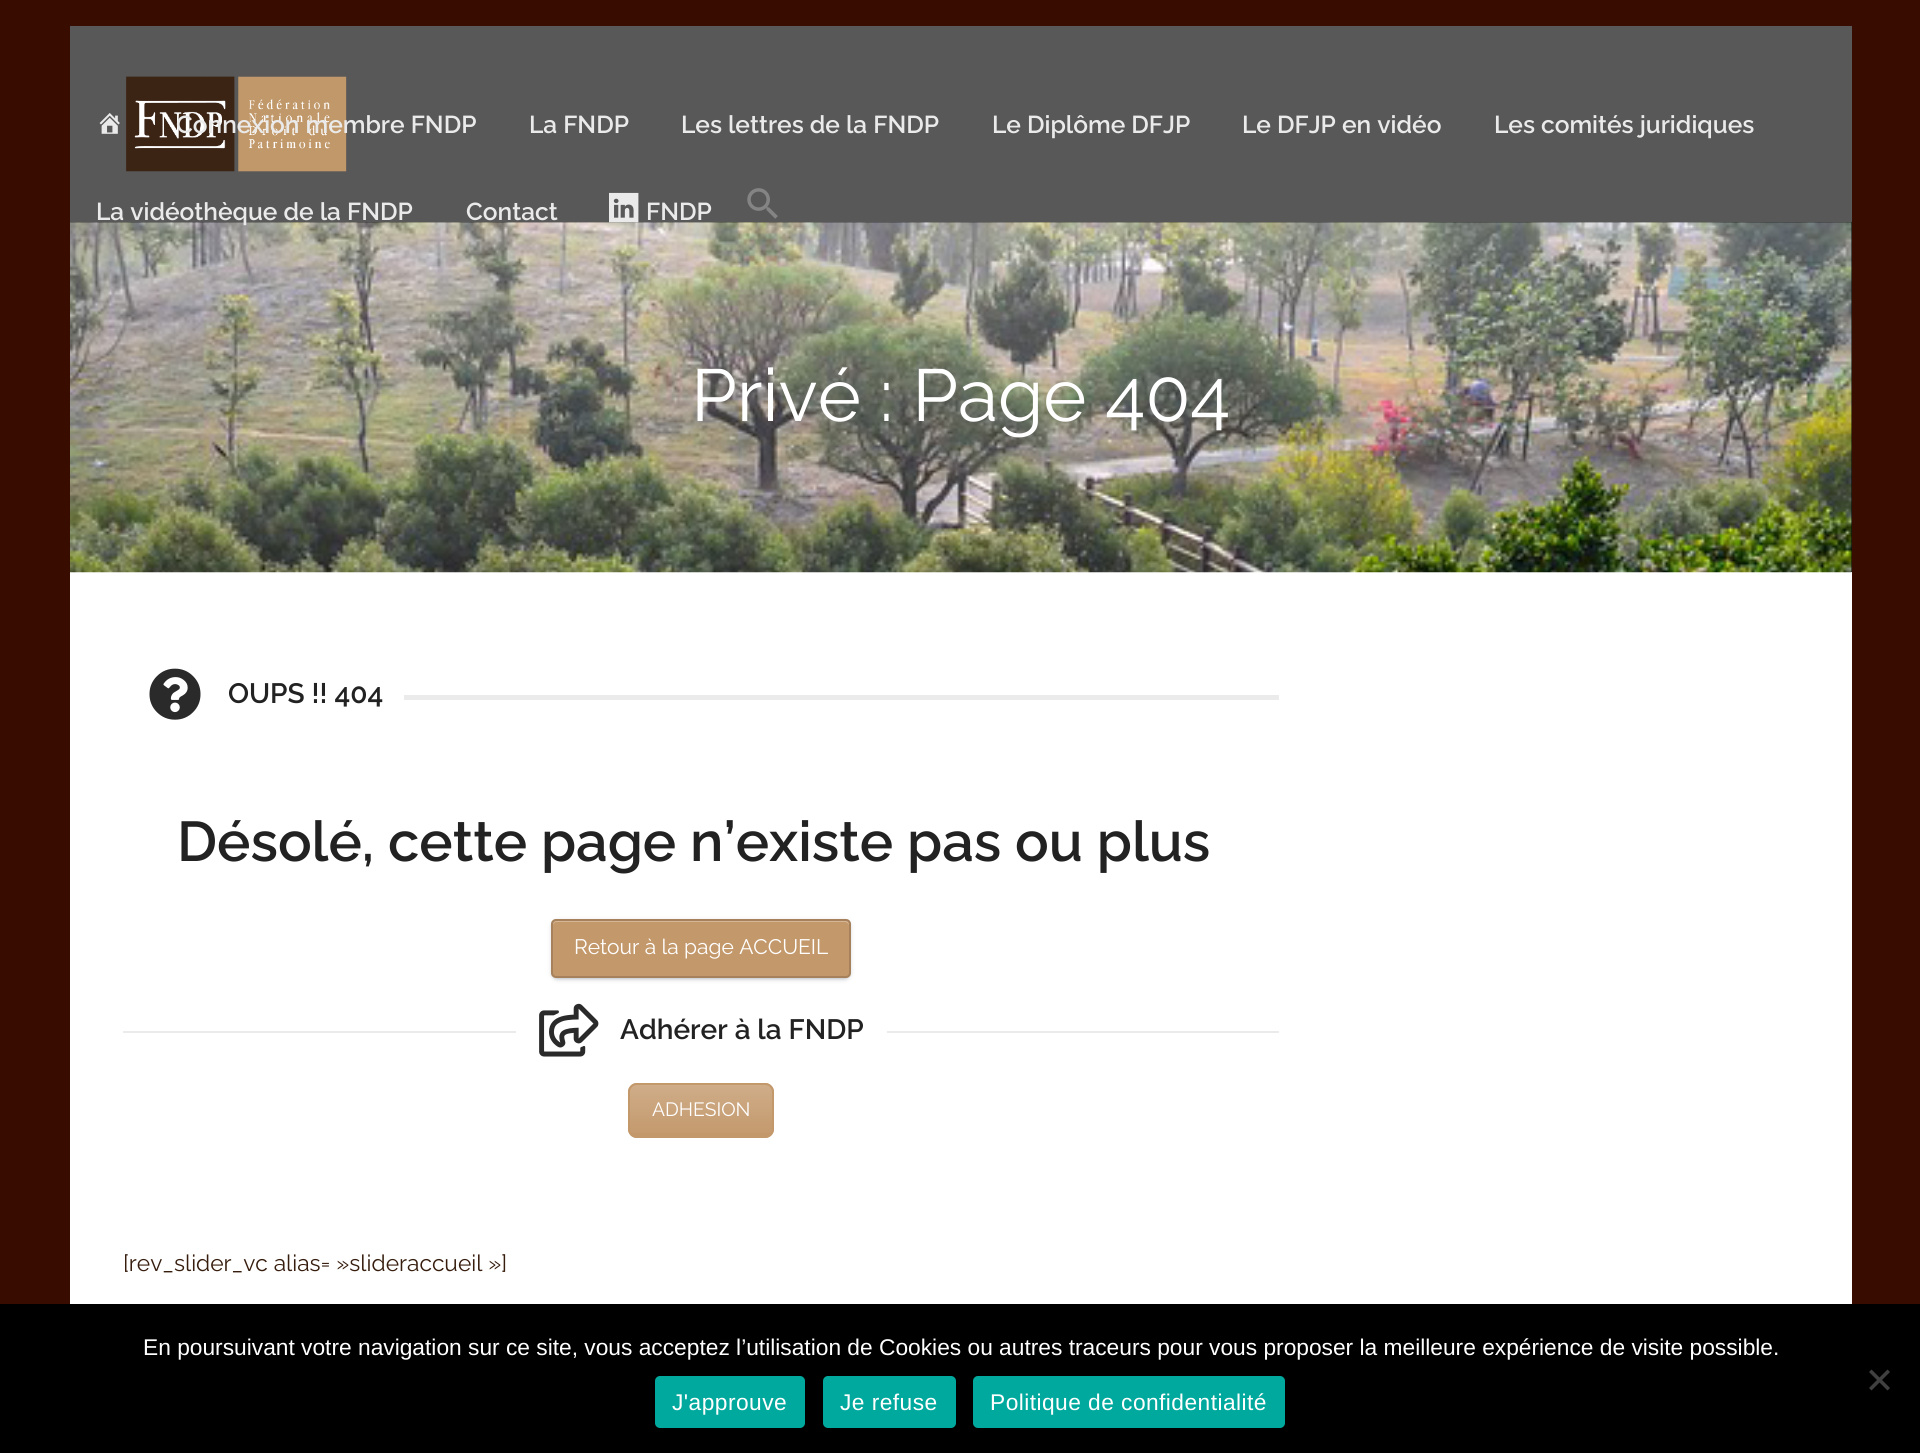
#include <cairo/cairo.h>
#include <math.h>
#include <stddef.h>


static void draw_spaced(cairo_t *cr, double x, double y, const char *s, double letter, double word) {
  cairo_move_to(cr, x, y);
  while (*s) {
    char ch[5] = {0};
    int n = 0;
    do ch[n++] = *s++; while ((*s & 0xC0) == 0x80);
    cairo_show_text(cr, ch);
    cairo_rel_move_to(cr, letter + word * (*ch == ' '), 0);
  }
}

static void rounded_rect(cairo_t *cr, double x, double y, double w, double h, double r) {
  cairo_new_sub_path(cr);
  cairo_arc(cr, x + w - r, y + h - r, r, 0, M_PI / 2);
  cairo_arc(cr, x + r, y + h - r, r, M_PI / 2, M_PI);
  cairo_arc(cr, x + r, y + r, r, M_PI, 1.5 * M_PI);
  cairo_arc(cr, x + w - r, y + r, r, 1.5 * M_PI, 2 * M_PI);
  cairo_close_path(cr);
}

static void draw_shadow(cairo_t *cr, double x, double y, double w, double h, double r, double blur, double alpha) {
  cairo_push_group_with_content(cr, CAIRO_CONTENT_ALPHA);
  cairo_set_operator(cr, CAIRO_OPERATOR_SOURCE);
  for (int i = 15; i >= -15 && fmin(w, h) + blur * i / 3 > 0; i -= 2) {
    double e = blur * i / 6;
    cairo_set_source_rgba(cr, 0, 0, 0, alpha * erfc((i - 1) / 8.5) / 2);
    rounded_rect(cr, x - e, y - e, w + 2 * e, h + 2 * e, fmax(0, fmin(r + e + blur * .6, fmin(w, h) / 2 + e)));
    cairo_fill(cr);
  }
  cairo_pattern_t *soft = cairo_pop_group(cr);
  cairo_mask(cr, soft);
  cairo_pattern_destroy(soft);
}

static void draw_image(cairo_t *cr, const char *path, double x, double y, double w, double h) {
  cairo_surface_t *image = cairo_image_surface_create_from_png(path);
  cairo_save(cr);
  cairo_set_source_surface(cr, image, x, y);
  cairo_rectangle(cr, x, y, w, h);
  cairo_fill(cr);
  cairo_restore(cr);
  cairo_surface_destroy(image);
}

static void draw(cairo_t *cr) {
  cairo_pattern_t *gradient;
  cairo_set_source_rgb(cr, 56 / 255.0, 13 / 255.0, 0);
  cairo_paint(cr);
  cairo_set_source_rgb(cr, 1, 1, 1);
  cairo_rectangle(cr, 70, 572, 1782, 732);
  cairo_fill(cr);
  cairo_set_source_rgb(cr, 88 / 255.0, 88 / 255.0, 88 / 255.0);
  cairo_rectangle(cr, 70, 26, 1782, 196);
  cairo_fill(cr);
  draw_image(cr, "images/1.png", 126, 76, 221, 96);
  draw_image(cr, "images/2.png", 99, 113, 21, 21);
  cairo_set_source_rgb(cr, 0, 0, 0);
  cairo_rectangle(cr, 70, 222, 1782, 350);
  cairo_fill(cr);
  draw_image(cr, "images/5.png", 70, 222, 1782, 351);
  draw_image(cr, "images/3.png", 609, 192, 30, 31);
  draw_image(cr, "images/4.png", 747, 188, 31, 31);
  draw_image(cr, "images/6.png", 149, 668, 52, 52);
  cairo_set_source_rgb(cr, 235 / 255.0, 235 / 255.0, 235 / 255.0);
  cairo_rectangle(cr, 404, 695, 875, 5);
  cairo_fill(cr);
  cairo_set_source_rgb(cr, 45 / 255.0, 60 / 255.0, 72 / 255.0);
  draw_shadow(cr, 553, 922, 296, 56, 4, 2.5, 0.5);
  cairo_set_source_rgb(cr, 195 / 255.0, 152 / 255.0, 107 / 255.0);
  rounded_rect(cr, 551, 919, 300, 59, 5);
  cairo_fill(cr);
  cairo_set_source_rgb(cr, 213 / 255.0, 183 / 255.0, 151 / 255.0);
  cairo_new_path(cr);
  cairo_move_to(cr, 556, 922);
  cairo_line_to(cr, 845, 922);
  cairo_curve_to(cr, 847, 922, 849, 924, 849, 926);
  cairo_curve_to(cr, 849, 923, 848, 921, 845, 921);
  cairo_line_to(cr, 557, 921);
  cairo_curve_to(cr, 554, 921, 553, 923, 553, 926);
  cairo_curve_to(cr, 553, 924, 555, 922, 556, 922);
  cairo_close_path(cr);
  cairo_fill(cr);
  rounded_rect(cr, 552, 920, 298, 57, 4);
  cairo_set_source_rgba(cr, 0, 0, 0, 0.15);
  cairo_stroke(cr);
  cairo_set_source_rgb(cr, 235 / 255.0, 235 / 255.0, 235 / 255.0);
  cairo_rectangle(cr, 123, 1031, 393, 2);
  cairo_fill(cr);
  draw_image(cr, "images/7.png", 539, 1003, 60, 54);
  cairo_rectangle(cr, 887, 1031, 392, 2);
  cairo_fill(cr);
  cairo_set_source_rgb(cr, 195 / 255.0, 152 / 255.0, 107 / 255.0);
  rounded_rect(cr, 628, 1083, 146, 55, 9);
  cairo_fill(cr);
  cairo_save(cr);
  rounded_rect(cr, 628, 1083, 146, 55, 9);
  cairo_clip(cr);
  gradient = cairo_pattern_create_linear(701, 1085, 701, 1136);
  cairo_pattern_add_color_stop_rgba(gradient, 0, 1, 1, 1, 0.2);
  cairo_pattern_add_color_stop_rgba(gradient, 1, 1, 1, 1, 0.01);
  cairo_set_source(cr, gradient);
  cairo_pattern_destroy(gradient);
  cairo_rectangle(cr, 628, 1085, 146, 48);
  cairo_fill(cr);
  cairo_restore(cr);
  rounded_rect(cr, 629, 1084, 144, 53, 8);
  cairo_stroke(cr);
  cairo_set_source_rgb(cr, 0, 0, 0);
  cairo_rectangle(cr, 0, 1304, 1920, 149);
  cairo_fill(cr);
  cairo_set_source_rgb(cr, 64 / 255.0, 64 / 255.0, 64 / 255.0);
  cairo_new_path(cr);
  cairo_move_to(cr, 1887.5, 1369.5);
  cairo_line_to(cr, 1890, 1372);
  cairo_line_to(cr, 1871.5, 1390.5);
  cairo_line_to(cr, 1869, 1388);
  cairo_close_path(cr);
  cairo_fill(cr);
  cairo_new_path(cr);
  cairo_move_to(cr, 1869, 1372);
  cairo_line_to(cr, 1871.5, 1369.5);
  cairo_line_to(cr, 1890, 1388);
  cairo_line_to(cr, 1887.5, 1390.5);
  cairo_close_path(cr);
  cairo_fill(cr);
  cairo_set_source_rgb(cr, 0, 169 / 255.0, 157 / 255.0);
  rounded_rect(cr, 655, 1376, 150, 52, 5);
  cairo_fill(cr);
  rounded_rect(cr, 823, 1376, 133, 52, 5);
  cairo_fill(cr);
  rounded_rect(cr, 973, 1376, 312, 52, 5);
  cairo_fill(cr);
  cairo_select_font_face(cr, "Raleway SemiBold", CAIRO_FONT_SLANT_NORMAL, CAIRO_FONT_WEIGHT_NORMAL);
  cairo_set_font_size(cr, 24.5);
  cairo_set_source_rgb(cr, 234 / 255.0, 234 / 255.0, 234 / 255.0);
  cairo_move_to(cr, 176, 133);
  cairo_show_text(cr, "Connexion membre FNDP");
  cairo_move_to(cr, 529, 133);
  cairo_show_text(cr, "La FNDP");
  cairo_move_to(cr, 681, 133);
  cairo_show_text(cr, "Les lettres de la FNDP");
  cairo_move_to(cr, 992, 133);
  cairo_show_text(cr, "Le Diplôme DFJP");
  cairo_move_to(cr, 1242, 133);
  cairo_show_text(cr, "Le DFJP en vidéo");
  cairo_move_to(cr, 1494, 133);
  cairo_show_text(cr, "Les comités juridiques");
  cairo_move_to(cr, 96, 220);
  cairo_show_text(cr, "La vidéothèque de la FNDP");
  cairo_move_to(cr, 466, 220);
  cairo_show_text(cr, "Contact");
  cairo_move_to(cr, 646, 220);
  cairo_show_text(cr, "FNDP");
  cairo_select_font_face(cr, "Raleway", CAIRO_FONT_SLANT_NORMAL, CAIRO_FONT_WEIGHT_NORMAL);
  cairo_set_font_size(cr, 73.5);
  cairo_set_source_rgb(cr, 1, 1, 1);
  cairo_move_to(cr, 691, 421);
  cairo_show_text(cr, "Privé : Page 404");
  cairo_select_font_face(cr, "Raleway SemiBold", CAIRO_FONT_SLANT_NORMAL, CAIRO_FONT_WEIGHT_NORMAL);
  cairo_set_font_size(cr, 28);
  cairo_set_source_rgb(cr, 34 / 255.0, 34 / 255.0, 34 / 255.0);
  cairo_move_to(cr, 228, 703);
  cairo_show_text(cr, "OUPS !! 404");
  cairo_set_font_size(cr, 56);
  cairo_move_to(cr, 177, 861);
  cairo_show_text(cr, "Désolé, cette page n’existe pas ou plus");
  cairo_select_font_face(cr, "Raleway", CAIRO_FONT_SLANT_NORMAL, CAIRO_FONT_WEIGHT_NORMAL);
  cairo_set_font_size(cr, 21);
  cairo_set_source_rgb(cr, 1, 1, 1);
  cairo_move_to(cr, 574, 954);
  cairo_show_text(cr, "Retour à la page ACCUEIL");
  cairo_select_font_face(cr, "Raleway SemiBold", CAIRO_FONT_SLANT_NORMAL, CAIRO_FONT_WEIGHT_NORMAL);
  cairo_set_font_size(cr, 28);
  cairo_set_source_rgb(cr, 34 / 255.0, 34 / 255.0, 34 / 255.0);
  cairo_move_to(cr, 620, 1039);
  cairo_show_text(cr, "Adhérer à la FNDP");
  cairo_select_font_face(cr, "Raleway", CAIRO_FONT_SLANT_NORMAL, CAIRO_FONT_WEIGHT_NORMAL);
  cairo_set_font_size(cr, 19.25);
  cairo_set_source_rgb(cr, 1, 1, 1);
  cairo_move_to(cr, 652, 1116);
  cairo_show_text(cr, "ADHESION");
  cairo_set_font_size(cr, 22.75);
  cairo_set_source_rgb(cr, 54 / 255.0, 29 / 255.0, 13 / 255.0);
  cairo_move_to(cr, 123, 1271);
  cairo_show_text(cr, "[rev_slider_vc alias= »slideraccueil »]");
  cairo_select_font_face(cr, "Liberation Sans", CAIRO_FONT_SLANT_NORMAL, CAIRO_FONT_WEIGHT_NORMAL);
  cairo_set_source_rgb(cr, 1, 1, 1);
  cairo_move_to(cr, 143, 1355);
  cairo_show_text(cr, "En poursuivant votre navigation sur ce site, vous acceptez l’utilisation de Cookies ou autres traceurs pour vous proposer la meilleure expérience de visite possible.");
  draw_spaced(cr, 672, 1410, "J'approuve", 0.45, 0);
  draw_spaced(cr, 840, 1410, "Je refuse", 0.45, 0);
  draw_spaced(cr, 990, 1410, "Politique de confidentialité", 0.45, 0);
}

int main(void) {
  cairo_surface_t *surface = cairo_image_surface_create(CAIRO_FORMAT_RGB24, 1920, 1453);
  cairo_t *cr = cairo_create(surface);
  cairo_font_options_t *options = cairo_font_options_create();
  cairo_font_options_set_hint_metrics(options, CAIRO_HINT_METRICS_OFF);
  cairo_font_options_set_hint_style(options, CAIRO_HINT_STYLE_NONE);
  cairo_set_font_options(cr, options);
  cairo_set_miter_limit(cr, 4);
  draw(cr);
  cairo_surface_write_to_png(surface, "out.png");
  cairo_font_options_destroy(options);
  cairo_destroy(cr);
  cairo_surface_destroy(surface);
  return 0;
}
